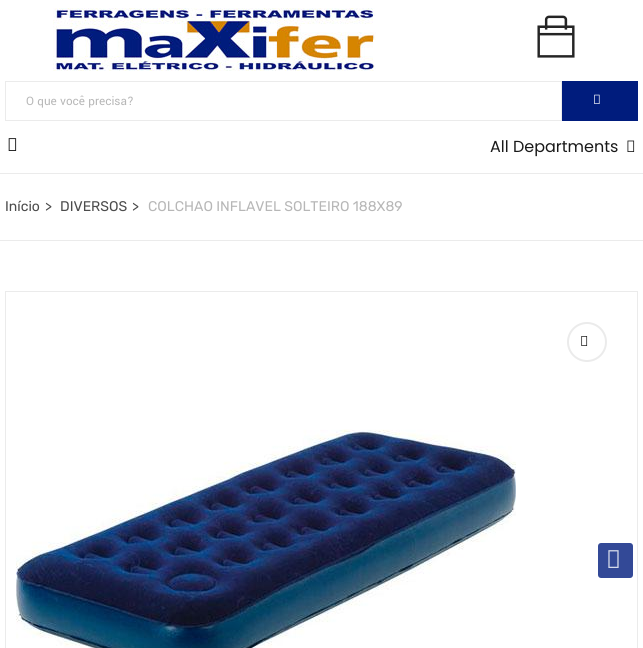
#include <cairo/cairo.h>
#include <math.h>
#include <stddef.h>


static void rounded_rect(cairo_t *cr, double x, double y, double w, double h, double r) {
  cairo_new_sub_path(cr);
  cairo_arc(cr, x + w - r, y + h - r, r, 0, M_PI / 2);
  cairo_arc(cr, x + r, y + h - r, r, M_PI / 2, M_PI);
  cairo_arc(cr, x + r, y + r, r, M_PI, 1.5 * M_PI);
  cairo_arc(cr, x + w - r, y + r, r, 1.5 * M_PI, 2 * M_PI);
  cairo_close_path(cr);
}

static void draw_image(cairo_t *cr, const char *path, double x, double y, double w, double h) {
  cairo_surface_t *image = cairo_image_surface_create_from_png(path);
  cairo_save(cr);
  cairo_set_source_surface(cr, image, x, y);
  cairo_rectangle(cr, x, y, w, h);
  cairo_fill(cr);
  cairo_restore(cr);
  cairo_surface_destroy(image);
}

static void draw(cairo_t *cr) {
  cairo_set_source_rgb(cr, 1, 1, 1);
  cairo_paint(cr);
  draw_image(cr, "images/1.png", 53, 8, 323, 63);
  draw_image(cr, "images/2.png", 537, 15, 38, 43);
  cairo_rectangle(cr, 5.5, 81.5, 556, 39);
  cairo_set_source_rgb(cr, 235 / 255.0, 235 / 255.0, 235 / 255.0);
  cairo_set_line_width(cr, 1);
  cairo_stroke(cr);
  cairo_set_source_rgb(cr, 0, 28 / 255.0, 125 / 255.0);
  cairo_rectangle(cr, 562, 81, 76, 40);
  cairo_fill(cr);
  draw_image(cr, "images/3.png", 594, 94, 6, 10);
  cairo_set_source_rgb(cr, 235 / 255.0, 235 / 255.0, 235 / 255.0);
  cairo_rectangle(cr, 0, 173, 643, 1);
  cairo_fill(cr);
  draw_image(cr, "images/4.png", 8, 138, 9, 13);
  draw_image(cr, "images/5.png", 627, 140, 8, 12);
  cairo_rectangle(cr, 0, 240, 643, 1);
  cairo_fill(cr);
  cairo_rectangle(cr, 5.5, 291.5, 632, 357);
  cairo_stroke(cr);
  cairo_arc(cr, 587, 342, 19, 0, 2 * M_PI);
  cairo_set_line_width(cr, 2);
  cairo_stroke(cr);
  draw_image(cr, "images/6.png", 581, 336, 7, 10);
  draw_image(cr, "images/7.png", 16, 429, 500, 219);
  cairo_set_source_rgb(cr, 51 / 255.0, 73 / 255.0, 151 / 255.0);
  rounded_rect(cr, 598, 543, 35, 35, 3);
  cairo_fill(cr);
  draw_image(cr, "images/8.png", 608, 550, 11, 18);
  cairo_select_font_face(cr, "Yantramanav", CAIRO_FONT_SLANT_NORMAL, CAIRO_FONT_WEIGHT_NORMAL);
  cairo_set_font_size(cr, 13);
  cairo_set_source_rgb(cr, 183 / 255.0, 183 / 255.0, 183 / 255.0);
  cairo_move_to(cr, 26, 105);
  cairo_show_text(cr, "O que você precisa?");
  cairo_select_font_face(cr, "Poppins", CAIRO_FONT_SLANT_NORMAL, CAIRO_FONT_WEIGHT_NORMAL);
  cairo_set_font_size(cr, 16);
  cairo_set_source_rgb(cr, 25 / 255.0, 25 / 255.0, 25 / 255.0);
  cairo_move_to(cr, 490, 152);
  cairo_show_text(cr, "All Departments");
  cairo_select_font_face(cr, "Rubik", CAIRO_FONT_SLANT_NORMAL, CAIRO_FONT_WEIGHT_NORMAL);
  cairo_set_font_size(cr, 14);
  cairo_set_source_rgb(cr, 76 / 255.0, 76 / 255.0, 76 / 255.0);
  cairo_move_to(cr, 5, 211);
  cairo_show_text(cr, "Início");
  cairo_move_to(cr, 45, 211);
  cairo_show_text(cr, ">");
  cairo_move_to(cr, 60, 211);
  cairo_show_text(cr, "DIVERSOS");
  cairo_move_to(cr, 132, 211);
  cairo_show_text(cr, ">");
  cairo_set_source_rgb(cr, 183 / 255.0, 183 / 255.0, 183 / 255.0);
  cairo_move_to(cr, 148, 211);
  cairo_show_text(cr, "COLCHAO INFLAVEL SOLTEIRO 188X89");
}

int main(void) {
  cairo_surface_t *surface = cairo_image_surface_create(CAIRO_FORMAT_RGB24, 643, 648);
  cairo_t *cr = cairo_create(surface);
  cairo_font_options_t *options = cairo_font_options_create();
  cairo_font_options_set_hint_metrics(options, CAIRO_HINT_METRICS_OFF);
  cairo_font_options_set_hint_style(options, CAIRO_HINT_STYLE_NONE);
  cairo_set_font_options(cr, options);
  cairo_set_miter_limit(cr, 4);
  draw(cr);
  cairo_surface_write_to_png(surface, "out.png");
  cairo_font_options_destroy(options);
  cairo_destroy(cr);
  cairo_surface_destroy(surface);
  return 0;
}
